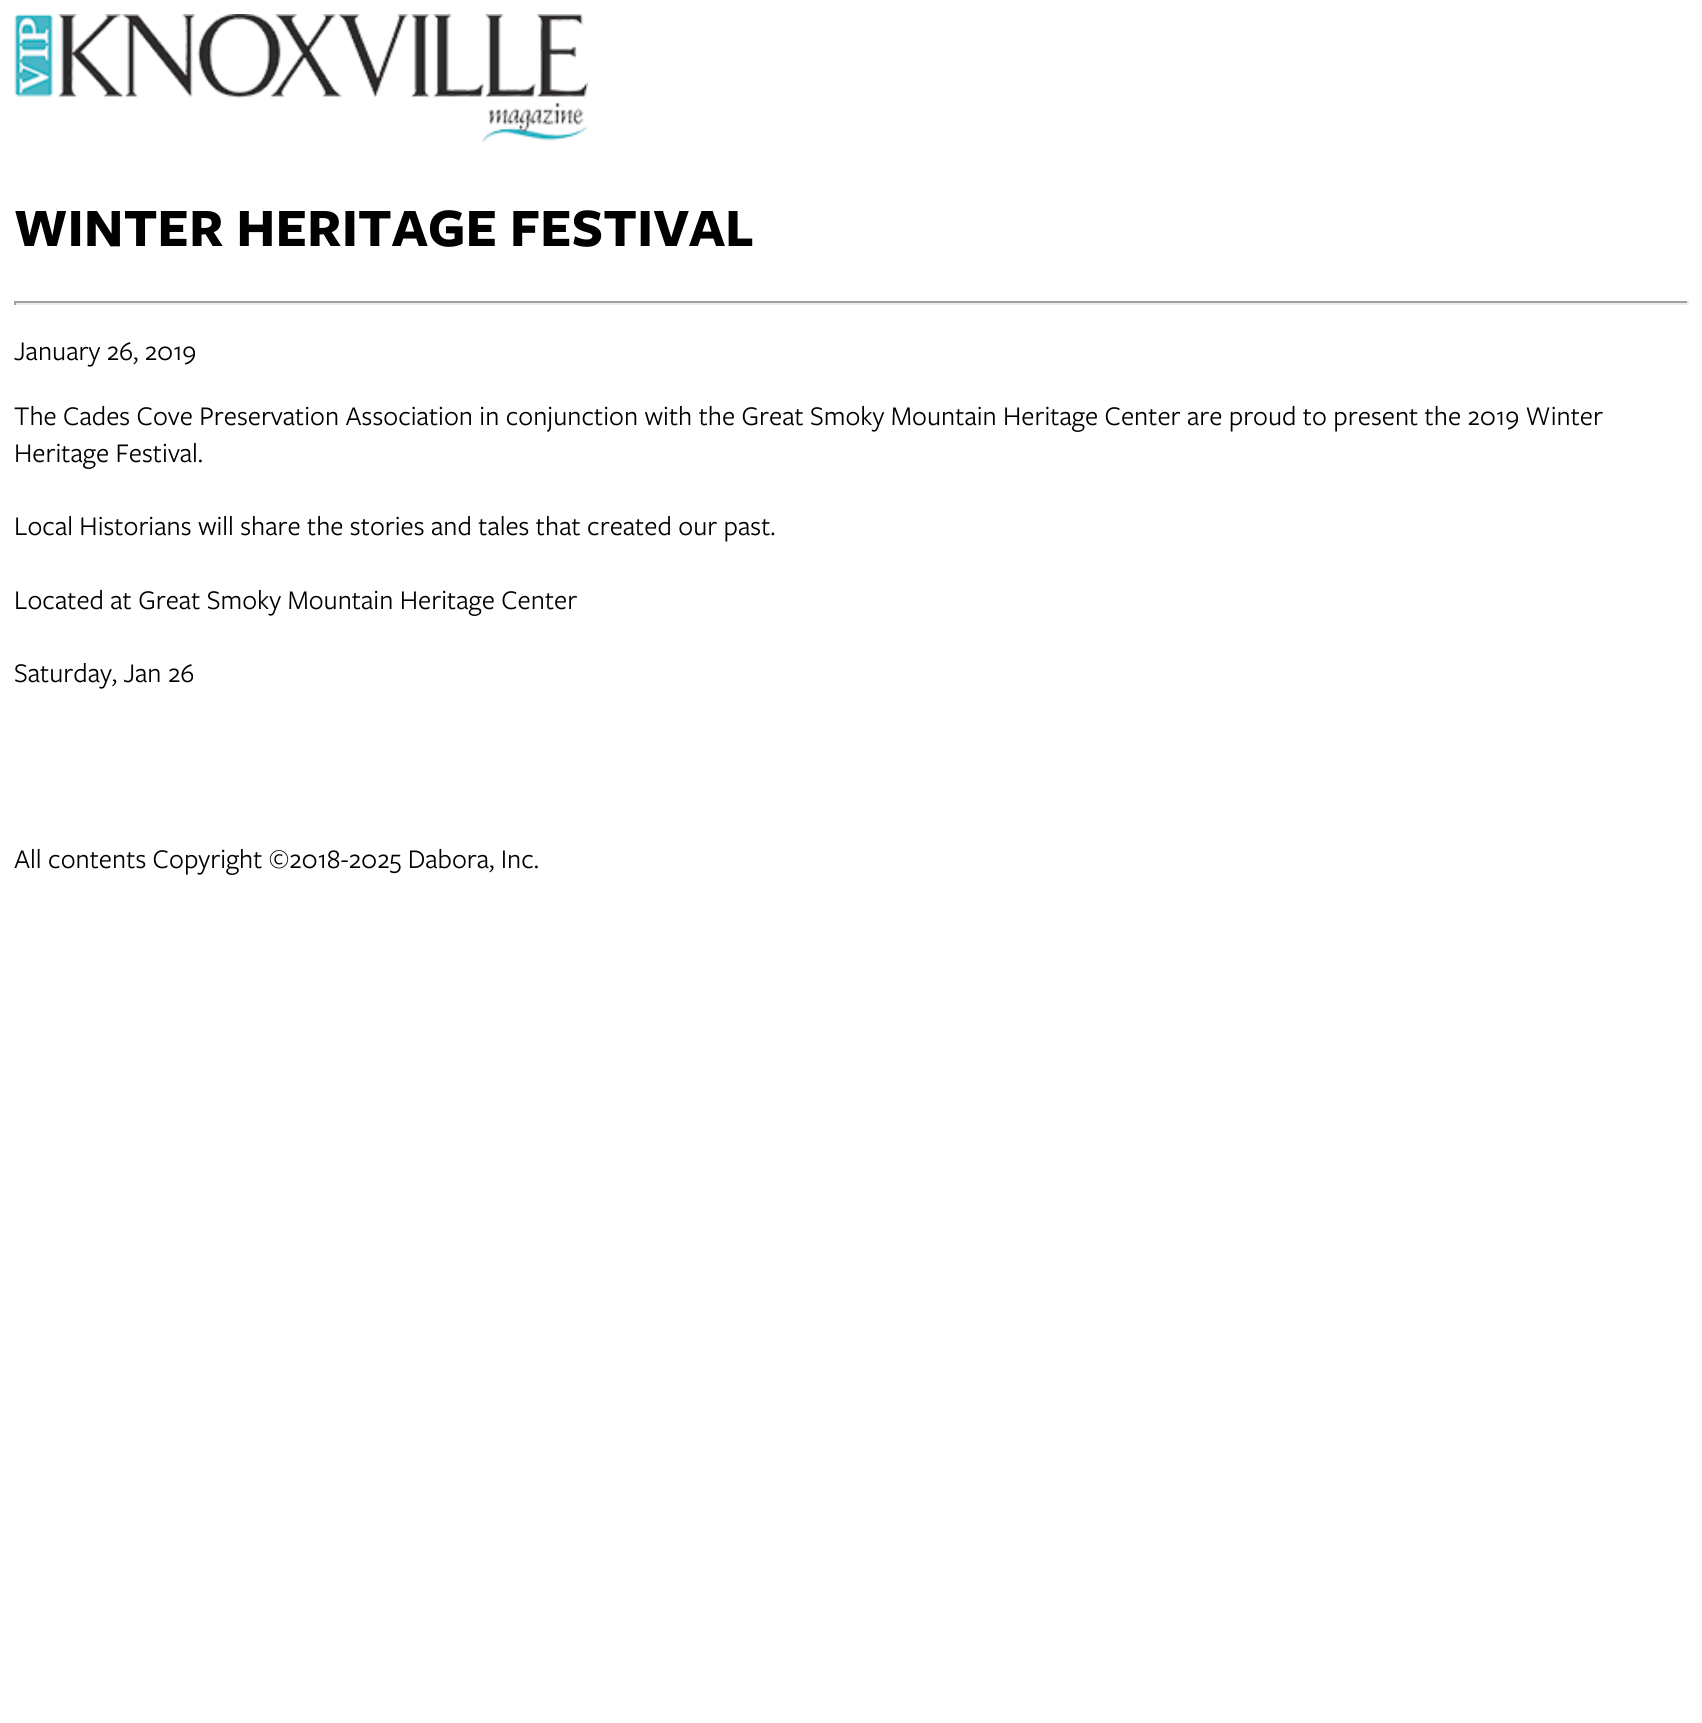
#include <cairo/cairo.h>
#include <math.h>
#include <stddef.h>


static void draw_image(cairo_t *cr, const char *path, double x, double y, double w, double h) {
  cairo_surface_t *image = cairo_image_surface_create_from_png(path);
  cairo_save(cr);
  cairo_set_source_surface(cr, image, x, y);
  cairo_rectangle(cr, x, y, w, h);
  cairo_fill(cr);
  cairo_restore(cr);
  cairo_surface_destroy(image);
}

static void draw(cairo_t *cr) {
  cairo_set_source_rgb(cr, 1, 1, 1);
  cairo_paint(cr);
  draw_image(cr, "images/1.png", 14, 14, 574, 128);
  cairo_set_source_rgb(cr, 159 / 255.0, 159 / 255.0, 159 / 255.0);
  cairo_rectangle(cr, 14, 301, 1675, 2);
  cairo_fill(cr);
  cairo_set_source_rgb(cr, 238 / 255.0, 238 / 255.0, 238 / 255.0);
  cairo_rectangle(cr, 1687, 301, 2, 4);
  cairo_fill(cr);
  cairo_rectangle(cr, 14, 303, 1675, 2);
  cairo_fill(cr);
  cairo_set_source_rgb(cr, 159 / 255.0, 159 / 255.0, 159 / 255.0);
  cairo_rectangle(cr, 14, 301, 2, 4);
  cairo_fill(cr);
  cairo_select_font_face(cr, "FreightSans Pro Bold", CAIRO_FONT_SLANT_NORMAL, CAIRO_FONT_WEIGHT_BOLD);
  cairo_set_font_size(cr, 56);
  cairo_set_source_rgb(cr, 0, 0, 0);
  cairo_move_to(cr, 14, 246);
  cairo_show_text(cr, "WINTER HERITAGE FESTIVAL");
  cairo_select_font_face(cr, "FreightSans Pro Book", CAIRO_FONT_SLANT_NORMAL, CAIRO_FONT_WEIGHT_NORMAL);
  cairo_set_font_size(cr, 28);
  cairo_move_to(cr, 14, 360);
  cairo_show_text(cr, "January 26, 2019");
  cairo_move_to(cr, 14, 425);
  cairo_show_text(cr, "The Cades Cove Preservation Association in conjunction with the Great Smoky Mountain Heritage Center are proud to present the 2019 Winter");
  cairo_move_to(cr, 14, 462);
  cairo_show_text(cr, "Heritage Festival.");
  cairo_move_to(cr, 14, 535);
  cairo_show_text(cr, "Local Historians will share the stories and tales that created our past.");
  cairo_move_to(cr, 14, 609);
  cairo_show_text(cr, "Located at Great Smoky Mountain Heritage Center");
  cairo_move_to(cr, 14, 682);
  cairo_show_text(cr, "Saturday, Jan 26");
  cairo_move_to(cr, 14, 868);
  cairo_show_text(cr, "All contents Copyright ©2018-2025 Dabora, Inc.");
}

int main(void) {
  cairo_surface_t *surface = cairo_image_surface_create(CAIRO_FORMAT_RGB24, 1702, 1723);
  cairo_t *cr = cairo_create(surface);
  cairo_font_options_t *options = cairo_font_options_create();
  cairo_font_options_set_hint_metrics(options, CAIRO_HINT_METRICS_OFF);
  cairo_font_options_set_hint_style(options, CAIRO_HINT_STYLE_NONE);
  cairo_set_font_options(cr, options);
  cairo_set_miter_limit(cr, 4);
  draw(cr);
  cairo_surface_write_to_png(surface, "out.png");
  cairo_font_options_destroy(options);
  cairo_destroy(cr);
  cairo_surface_destroy(surface);
  return 0;
}
